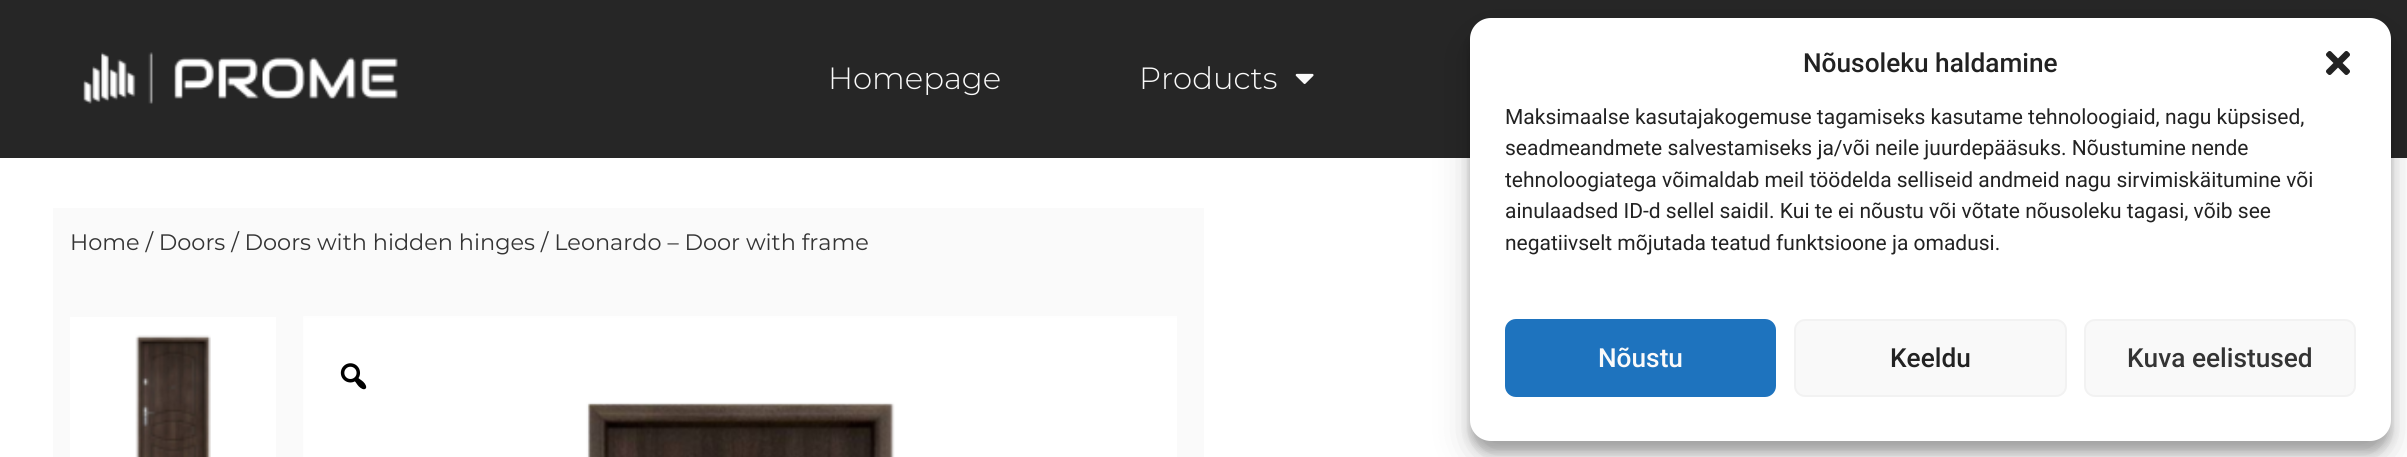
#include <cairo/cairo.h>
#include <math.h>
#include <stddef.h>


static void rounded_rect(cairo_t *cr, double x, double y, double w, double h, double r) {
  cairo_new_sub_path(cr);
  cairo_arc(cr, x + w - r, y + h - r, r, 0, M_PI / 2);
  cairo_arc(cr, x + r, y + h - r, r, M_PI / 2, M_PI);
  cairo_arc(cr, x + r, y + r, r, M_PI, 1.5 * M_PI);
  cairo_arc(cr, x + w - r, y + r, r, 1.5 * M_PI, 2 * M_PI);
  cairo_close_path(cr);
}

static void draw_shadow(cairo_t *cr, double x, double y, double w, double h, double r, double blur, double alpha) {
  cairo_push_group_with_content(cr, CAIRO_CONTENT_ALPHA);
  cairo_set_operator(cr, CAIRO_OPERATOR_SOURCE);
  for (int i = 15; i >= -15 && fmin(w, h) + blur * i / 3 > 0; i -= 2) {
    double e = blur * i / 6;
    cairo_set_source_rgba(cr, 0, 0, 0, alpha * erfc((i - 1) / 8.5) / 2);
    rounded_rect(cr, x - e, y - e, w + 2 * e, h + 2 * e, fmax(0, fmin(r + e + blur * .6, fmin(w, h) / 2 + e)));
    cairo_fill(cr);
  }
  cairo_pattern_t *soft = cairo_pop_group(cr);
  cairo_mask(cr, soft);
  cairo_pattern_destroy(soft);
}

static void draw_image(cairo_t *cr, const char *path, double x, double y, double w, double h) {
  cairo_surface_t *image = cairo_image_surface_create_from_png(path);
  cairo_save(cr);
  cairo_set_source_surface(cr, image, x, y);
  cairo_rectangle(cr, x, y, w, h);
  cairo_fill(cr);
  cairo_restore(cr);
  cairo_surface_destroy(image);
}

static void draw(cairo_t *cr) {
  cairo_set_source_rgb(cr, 1, 1, 1);
  cairo_paint(cr);
  cairo_set_source_rgb(cr, 38 / 255.0, 38 / 255.0, 38 / 255.0);
  cairo_rectangle(cr, 0, 0, 2407, 158);
  cairo_fill(cr);
  draw_image(cr, "images/1.png", 83, 52, 315, 52);
  draw_image(cr, "images/2.png", 1295, 73, 19, 11);
  cairo_set_source_rgb(cr, 0, 0, 0);
  draw_shadow(cr, 1470, 28, 921, 424, 21, 5, 0.23);
  draw_shadow(cr, 1470, 35, 921, 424, 21, 17.5, 0.19);
  cairo_set_source_rgb(cr, 1, 1, 1);
  rounded_rect(cr, 1470, 18, 921, 423, 21);
  cairo_fill(cr);
  draw_image(cr, "images/3.png", 2326, 51, 24, 24);
  cairo_set_source_rgb(cr, 30 / 255.0, 115 / 255.0, 190 / 255.0);
  rounded_rect(cr, 1506, 320, 269, 76, 10);
  cairo_fill_preserve(cr);
  cairo_stroke(cr);
  cairo_set_source_rgb(cr, 249 / 255.0, 249 / 255.0, 249 / 255.0);
  rounded_rect(cr, 1795, 320, 271, 76, 10);
  cairo_fill_preserve(cr);
  cairo_set_source_rgb(cr, 242 / 255.0, 242 / 255.0, 242 / 255.0);
  cairo_stroke(cr);
  cairo_set_source_rgb(cr, 249 / 255.0, 249 / 255.0, 249 / 255.0);
  rounded_rect(cr, 2085, 320, 270, 76, 10);
  cairo_fill_preserve(cr);
  cairo_set_source_rgb(cr, 242 / 255.0, 242 / 255.0, 242 / 255.0);
  cairo_stroke(cr);
  cairo_set_source_rgb(cr, 250 / 255.0, 250 / 255.0, 250 / 255.0);
  cairo_rectangle(cr, 53, 208, 1151, 249);
  cairo_fill(cr);
  draw_image(cr, "images/4.png", 70, 317, 206, 140);
  draw_image(cr, "images/5.png", 303, 316, 874, 141);
  draw_image(cr, "images/6.png", 340, 363, 27, 27);
  cairo_select_font_face(cr, "Montserrat Light", CAIRO_FONT_SLANT_NORMAL, CAIRO_FONT_WEIGHT_NORMAL);
  cairo_set_font_size(cr, 30.75);
  cairo_move_to(cr, 828, 89);
  cairo_show_text(cr, "Homepage");
  cairo_move_to(cr, 1139, 89);
  cairo_show_text(cr, "Products");
  cairo_select_font_face(cr, "Roboto Medium", CAIRO_FONT_SLANT_NORMAL, CAIRO_FONT_WEIGHT_NORMAL);
  cairo_set_font_size(cr, 26.25);
  cairo_set_source_rgb(cr, 34 / 255.0, 34 / 255.0, 34 / 255.0);
  cairo_move_to(cr, 1803, 72);
  cairo_show_text(cr, "Nõusoleku haldamine");
  cairo_select_font_face(cr, "Roboto", CAIRO_FONT_SLANT_NORMAL, CAIRO_FONT_WEIGHT_NORMAL);
  cairo_set_font_size(cr, 21);
  cairo_move_to(cr, 1505, 124);
  cairo_show_text(cr, "Maksimaalse kasutajakogemuse tagamiseks kasutame tehnoloogiaid, nagu küpsised,");
  cairo_move_to(cr, 1505, 155);
  cairo_show_text(cr, "seadmeandmete salvestamiseks ja/või neile juurdepääsuks. Nõustumine nende");
  cairo_move_to(cr, 1505, 187);
  cairo_show_text(cr, "tehnoloogiatega võimaldab meil töödelda selliseid andmeid nagu sirvimiskäitumine või");
  cairo_move_to(cr, 1505, 218);
  cairo_show_text(cr, "ainulaadsed ID-d sellel saidil. Kui te ei nõustu või võtate nõusoleku tagasi, võib see");
  cairo_move_to(cr, 1505, 250);
  cairo_show_text(cr, "negatiivselt mõjutada teatud funktsioone ja omadusi.");
  cairo_select_font_face(cr, "Roboto Medium", CAIRO_FONT_SLANT_NORMAL, CAIRO_FONT_WEIGHT_NORMAL);
  cairo_set_font_size(cr, 26.25);
  cairo_set_source_rgb(cr, 250 / 255.0, 250 / 255.0, 250 / 255.0);
  cairo_move_to(cr, 1598, 367);
  cairo_show_text(cr, "Nõustu");
  cairo_set_source_rgb(cr, 34 / 255.0, 34 / 255.0, 34 / 255.0);
  cairo_move_to(cr, 1890, 367);
  cairo_show_text(cr, "Keeldu");
  cairo_set_source_rgb(cr, 52 / 255.0, 52 / 255.0, 52 / 255.0);
  cairo_move_to(cr, 2127, 367);
  cairo_show_text(cr, "Kuva eelistused");
  cairo_select_font_face(cr, "Montserrat", CAIRO_FONT_SLANT_NORMAL, CAIRO_FONT_WEIGHT_NORMAL);
  cairo_set_font_size(cr, 22.4);
  cairo_move_to(cr, 70, 250);
  cairo_show_text(cr, "Home / Doors / Doors with hidden hinges / Leonardo – Door with frame");
}

int main(void) {
  cairo_surface_t *surface = cairo_image_surface_create(CAIRO_FORMAT_RGB24, 2407, 457);
  cairo_t *cr = cairo_create(surface);
  cairo_font_options_t *options = cairo_font_options_create();
  cairo_font_options_set_hint_metrics(options, CAIRO_HINT_METRICS_OFF);
  cairo_font_options_set_hint_style(options, CAIRO_HINT_STYLE_NONE);
  cairo_set_font_options(cr, options);
  cairo_set_miter_limit(cr, 4);
  draw(cr);
  cairo_surface_write_to_png(surface, "out.png");
  cairo_font_options_destroy(options);
  cairo_destroy(cr);
  cairo_surface_destroy(surface);
  return 0;
}
